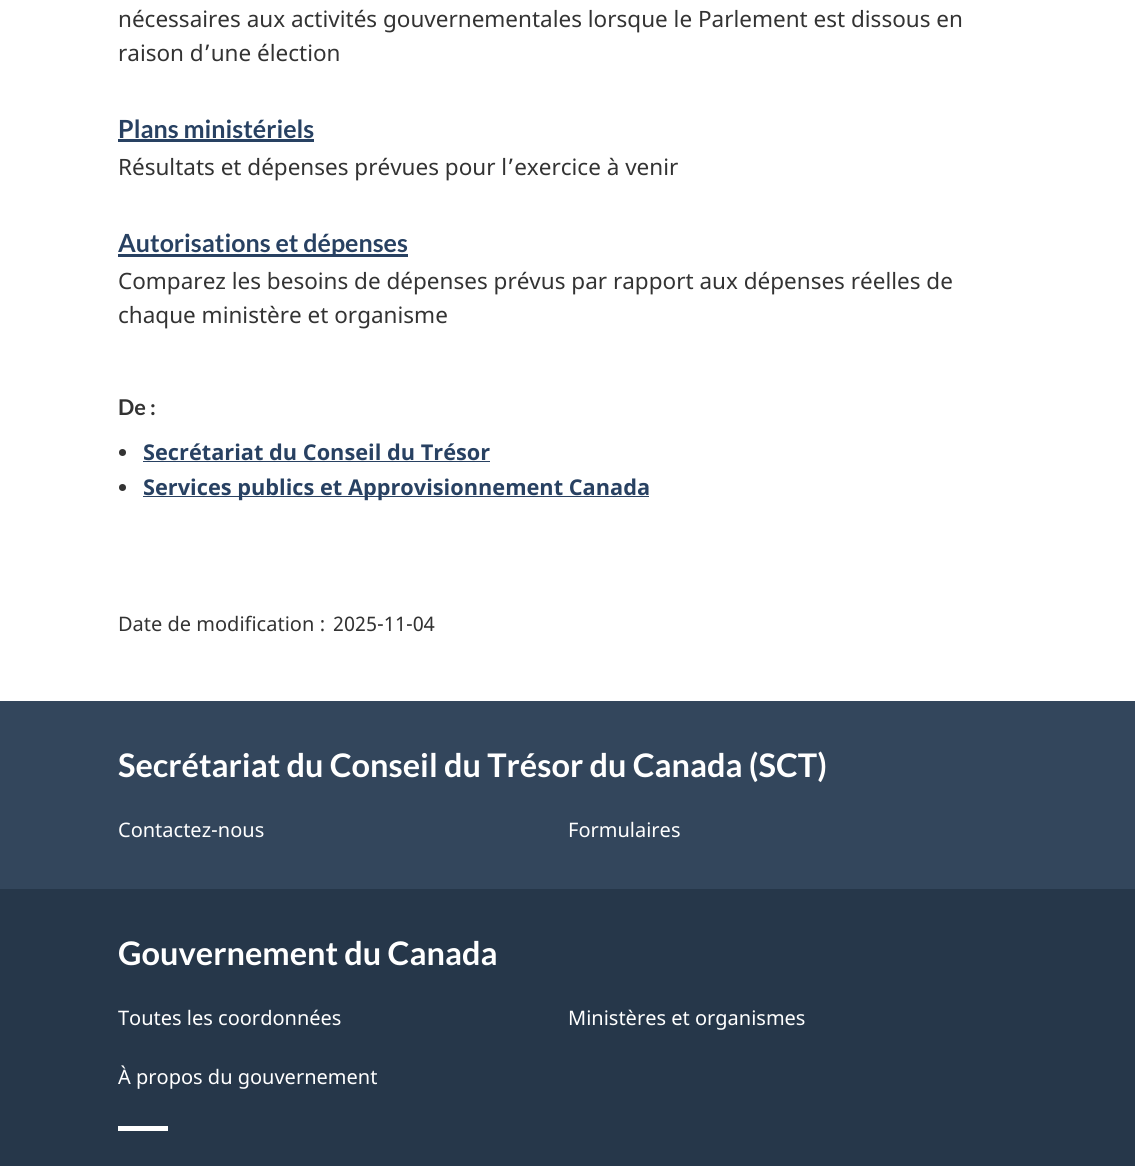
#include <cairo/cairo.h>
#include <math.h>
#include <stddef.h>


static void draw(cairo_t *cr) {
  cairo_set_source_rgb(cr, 1, 1, 1);
  cairo_paint(cr);
  cairo_set_source_rgb(cr, 40 / 255.0, 65 / 255.0, 98 / 255.0);
  cairo_rectangle(cr, 118, 139, 196, 3);
  cairo_fill(cr);
  cairo_rectangle(cr, 118, 254, 290, 3);
  cairo_fill(cr);
  cairo_set_source_rgb(cr, 51 / 255.0, 51 / 255.0, 51 / 255.0);
  cairo_arc(cr, 122.5, 452.5, 3.5, 0, 2 * M_PI);
  cairo_fill(cr);
  cairo_set_source_rgb(cr, 40 / 255.0, 65 / 255.0, 98 / 255.0);
  cairo_rectangle(cr, 143, 461, 347, 1);
  cairo_fill(cr);
  cairo_set_source_rgb(cr, 51 / 255.0, 51 / 255.0, 51 / 255.0);
  cairo_arc(cr, 122.5, 487.5, 3.5, 0, 2 * M_PI);
  cairo_fill(cr);
  cairo_set_source_rgb(cr, 40 / 255.0, 65 / 255.0, 98 / 255.0);
  cairo_rectangle(cr, 143, 496, 506, 1);
  cairo_fill(cr);
  cairo_set_source_rgb(cr, 51 / 255.0, 70 / 255.0, 92 / 255.0);
  cairo_rectangle(cr, 0, 701, 1135, 188);
  cairo_fill(cr);
  cairo_set_source_rgb(cr, 38 / 255.0, 55 / 255.0, 74 / 255.0);
  cairo_rectangle(cr, 0, 889, 1135, 277);
  cairo_fill(cr);
  cairo_set_source_rgb(cr, 1, 1, 1);
  cairo_rectangle(cr, 118, 1126, 50, 5);
  cairo_fill(cr);
  cairo_select_font_face(cr, "Noto Sans", CAIRO_FONT_SLANT_NORMAL, CAIRO_FONT_WEIGHT_NORMAL);
  cairo_set_font_size(cr, 22.5);
  cairo_set_source_rgb(cr, 51 / 255.0, 51 / 255.0, 51 / 255.0);
  cairo_move_to(cr, 118, 27);
  cairo_show_text(cr, "nécessaires aux activités gouvernementales lorsque le Parlement est dissous en");
  cairo_move_to(cr, 118, 61);
  cairo_show_text(cr, "raison d’une élection");
  cairo_select_font_face(cr, "Lato", CAIRO_FONT_SLANT_NORMAL, CAIRO_FONT_WEIGHT_BOLD);
  cairo_set_font_size(cr, 25);
  cairo_set_source_rgb(cr, 40 / 255.0, 65 / 255.0, 98 / 255.0);
  cairo_move_to(cr, 118, 138);
  cairo_show_text(cr, "Plans ministériels");
  cairo_select_font_face(cr, "Noto Sans", CAIRO_FONT_SLANT_NORMAL, CAIRO_FONT_WEIGHT_NORMAL);
  cairo_set_font_size(cr, 22.5);
  cairo_set_source_rgb(cr, 51 / 255.0, 51 / 255.0, 51 / 255.0);
  cairo_move_to(cr, 118, 175);
  cairo_show_text(cr, "Résultats et dépenses prévues pour l’exercice à venir");
  cairo_select_font_face(cr, "Lato", CAIRO_FONT_SLANT_NORMAL, CAIRO_FONT_WEIGHT_BOLD);
  cairo_set_font_size(cr, 25);
  cairo_set_source_rgb(cr, 40 / 255.0, 65 / 255.0, 98 / 255.0);
  cairo_move_to(cr, 118, 252);
  cairo_show_text(cr, "Autorisations et dépenses");
  cairo_select_font_face(cr, "Noto Sans", CAIRO_FONT_SLANT_NORMAL, CAIRO_FONT_WEIGHT_NORMAL);
  cairo_set_font_size(cr, 22.5);
  cairo_set_source_rgb(cr, 51 / 255.0, 51 / 255.0, 51 / 255.0);
  cairo_move_to(cr, 118, 289);
  cairo_show_text(cr, "Comparez les besoins de dépenses prévus par rapport aux dépenses réelles de");
  cairo_move_to(cr, 118, 323);
  cairo_show_text(cr, "chaque ministère et organisme");
  cairo_select_font_face(cr, "Lato", CAIRO_FONT_SLANT_NORMAL, CAIRO_FONT_WEIGHT_BOLD);
  cairo_set_font_size(cr, 21.75);
  cairo_move_to(cr, 118, 415);
  cairo_show_text(cr, "De :");
  cairo_select_font_face(cr, "Noto Sans", CAIRO_FONT_SLANT_NORMAL, CAIRO_FONT_WEIGHT_BOLD);
  cairo_set_source_rgb(cr, 40 / 255.0, 65 / 255.0, 98 / 255.0);
  cairo_move_to(cr, 143, 460);
  cairo_show_text(cr, "Secrétariat du Conseil du Trésor");
  cairo_move_to(cr, 143, 495);
  cairo_show_text(cr, "Services publics et Approvisionnement Canada");
  cairo_select_font_face(cr, "Noto Sans", CAIRO_FONT_SLANT_NORMAL, CAIRO_FONT_WEIGHT_NORMAL);
  cairo_set_font_size(cr, 20);
  cairo_set_source_rgb(cr, 51 / 255.0, 51 / 255.0, 51 / 255.0);
  cairo_move_to(cr, 118, 631);
  cairo_show_text(cr, "Date de modification :");
  cairo_move_to(cr, 333, 631);
  cairo_show_text(cr, "2025-11-04");
  cairo_select_font_face(cr, "Lato", CAIRO_FONT_SLANT_NORMAL, CAIRO_FONT_WEIGHT_BOLD);
  cairo_set_font_size(cr, 32.5);
  cairo_set_source_rgb(cr, 1, 1, 1);
  cairo_move_to(cr, 118, 777);
  cairo_show_text(cr, "Secrétariat du Conseil du Trésor du Canada (SCT)");
  cairo_select_font_face(cr, "Noto Sans", CAIRO_FONT_SLANT_NORMAL, CAIRO_FONT_WEIGHT_NORMAL);
  cairo_set_font_size(cr, 20);
  cairo_move_to(cr, 118, 837);
  cairo_show_text(cr, "Contactez-nous");
  cairo_move_to(cr, 568, 837);
  cairo_show_text(cr, "Formulaires");
  cairo_select_font_face(cr, "Lato", CAIRO_FONT_SLANT_NORMAL, CAIRO_FONT_WEIGHT_BOLD);
  cairo_set_font_size(cr, 32.5);
  cairo_move_to(cr, 118, 965);
  cairo_show_text(cr, "Gouvernement du Canada");
  cairo_select_font_face(cr, "Noto Sans", CAIRO_FONT_SLANT_NORMAL, CAIRO_FONT_WEIGHT_NORMAL);
  cairo_set_font_size(cr, 20);
  cairo_move_to(cr, 118, 1025);
  cairo_show_text(cr, "Toutes les coordonnées");
  cairo_move_to(cr, 568, 1025);
  cairo_show_text(cr, "Ministères et organismes");
  cairo_move_to(cr, 118, 1084);
  cairo_show_text(cr, "À propos du gouvernement");
}

int main(void) {
  cairo_surface_t *surface = cairo_image_surface_create(CAIRO_FORMAT_RGB24, 1135, 1166);
  cairo_t *cr = cairo_create(surface);
  cairo_font_options_t *options = cairo_font_options_create();
  cairo_font_options_set_hint_metrics(options, CAIRO_HINT_METRICS_OFF);
  cairo_font_options_set_hint_style(options, CAIRO_HINT_STYLE_NONE);
  cairo_set_font_options(cr, options);
  cairo_set_miter_limit(cr, 4);
  draw(cr);
  cairo_surface_write_to_png(surface, "out.png");
  cairo_font_options_destroy(options);
  cairo_destroy(cr);
  cairo_surface_destroy(surface);
  return 0;
}
